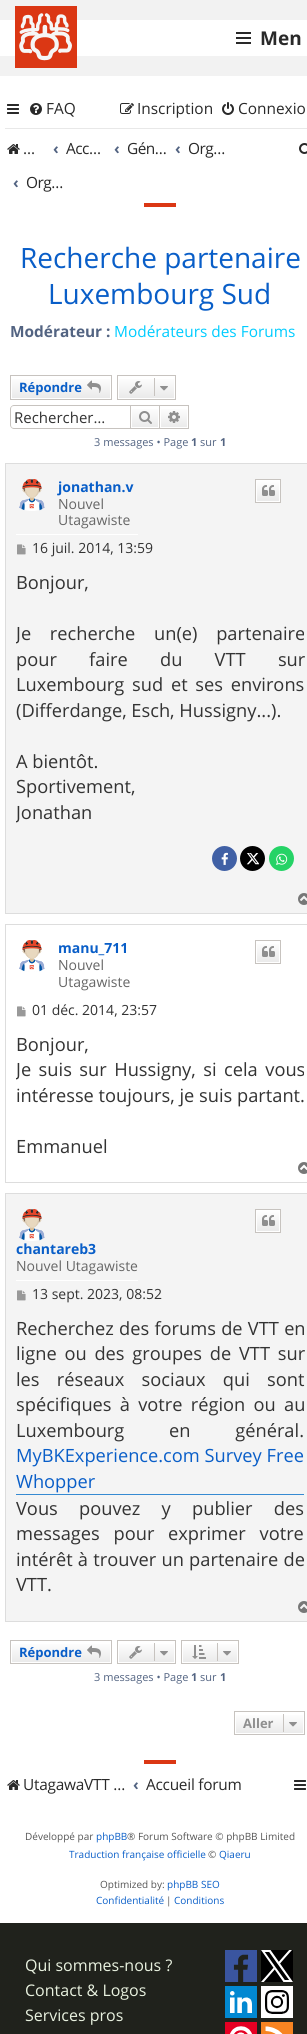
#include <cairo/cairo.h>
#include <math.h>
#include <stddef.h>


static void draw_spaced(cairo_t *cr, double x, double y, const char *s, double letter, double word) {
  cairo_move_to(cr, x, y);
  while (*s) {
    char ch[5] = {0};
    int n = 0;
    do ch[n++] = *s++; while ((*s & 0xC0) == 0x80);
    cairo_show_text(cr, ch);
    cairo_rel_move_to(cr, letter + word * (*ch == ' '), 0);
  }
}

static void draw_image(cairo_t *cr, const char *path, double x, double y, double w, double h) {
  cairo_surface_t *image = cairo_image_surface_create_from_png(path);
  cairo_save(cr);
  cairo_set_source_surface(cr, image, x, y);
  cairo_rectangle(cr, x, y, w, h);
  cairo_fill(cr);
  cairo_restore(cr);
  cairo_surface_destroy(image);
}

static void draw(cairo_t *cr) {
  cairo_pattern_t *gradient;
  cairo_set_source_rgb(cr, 1, 1, 1);
  cairo_paint(cr);
  cairo_set_source_rgb(cr, 242 / 255.0, 242 / 255.0, 242 / 255.0);
  cairo_rectangle(cr, 0, 0, 307, 76);
  cairo_fill(cr);
  cairo_set_source_rgb(cr, 1, 1, 1);
  cairo_rectangle(cr, 0, 20, 307, 36);
  cairo_fill(cr);
  draw_image(cr, "images/1.png", 15, 6, 62, 62);
  cairo_set_source_rgb(cr, 41 / 255.0, 41 / 255.0, 41 / 255.0);
  cairo_rectangle(cr, 236, 32, 15, 2);
  cairo_fill(cr);
  cairo_rectangle(cr, 236, 37, 15, 2);
  cairo_fill(cr);
  cairo_rectangle(cr, 236, 42, 15, 2);
  cairo_fill(cr);
  draw_image(cr, "images/2.png", 7, 104, 12, 10);
  draw_image(cr, "images/3.png", 30, 103, 12, 12);
  draw_image(cr, "images/4.png", 120, 103, 14, 11);
  draw_image(cr, "images/5.png", 222, 102, 12, 13);
  cairo_set_source_rgb(cr, 232 / 255.0, 232 / 255.0, 232 / 255.0);
  cairo_rectangle(cr, 5, 128, 302, 1);
  cairo_fill(cr);
  draw_image(cr, "images/6.png", 7, 144, 13, 10);
  draw_image(cr, "images/7.png", 299, 143, 8, 11);
  cairo_set_source_rgb(cr, 219 / 255.0, 55 / 255.0, 20 / 255.0);
  cairo_rectangle(cr, 144, 203, 32, 4);
  cairo_fill(cr);
  gradient = cairo_pattern_create_linear(61, 376, 61, 399);
  cairo_pattern_add_color_stop_rgba(gradient, 0, 1, 1, 1, 1);
  cairo_pattern_add_color_stop_rgba(gradient, 1, 233 / 255.0, 233 / 255.0, 233 / 255.0, 1);
  cairo_set_source(cr, gradient);
  cairo_pattern_destroy(gradient);
  cairo_rectangle(cr, 12, 379, 98, 19);
  cairo_fill(cr);
  cairo_rectangle(cr, 10.5, 375.5, 101, 24);
  cairo_set_source_rgb(cr, 199 / 255.0, 195 / 255.0, 191 / 255.0);
  cairo_set_line_width(cr, 1);
  cairo_stroke(cr);
  draw_image(cr, "images/8.png", 87, 380, 14, 13);
  gradient = cairo_pattern_create_linear(147, 376, 147, 399);
  cairo_pattern_add_color_stop_rgba(gradient, 0, 1, 1, 1, 1);
  cairo_pattern_add_color_stop_rgba(gradient, 1, 233 / 255.0, 233 / 255.0, 233 / 255.0, 1);
  cairo_set_source(cr, gradient);
  cairo_pattern_destroy(gradient);
  cairo_rectangle(cr, 119, 379, 55, 19);
  cairo_fill(cr);
  cairo_rectangle(cr, 117.5, 375.5, 58, 24);
  cairo_set_source_rgb(cr, 199 / 255.0, 195 / 255.0, 191 / 255.0);
  cairo_stroke(cr);
  draw_image(cr, "images/9.png", 129, 381, 13, 13);
  cairo_rectangle(cr, 154, 378, 1, 18);
  cairo_fill(cr);
  draw_image(cr, "images/10.png", 160, 386, 8, 5);
  cairo_set_fill_rule(cr, CAIRO_FILL_RULE_EVEN_ODD);
  cairo_new_path(cr);
  cairo_move_to(cr, 14, 405);
  cairo_line_to(cr, 130, 405);
  cairo_line_to(cr, 130, 429);
  cairo_line_to(cr, 14, 429);
  cairo_curve_to(cr, 12, 429, 10, 427, 10, 425);
  cairo_line_to(cr, 10, 409);
  cairo_curve_to(cr, 10, 407, 12, 405, 14, 405);
  cairo_close_path(cr);
  cairo_move_to(cr, 14, 406);
  cairo_line_to(cr, 130, 406);
  cairo_line_to(cr, 130, 428);
  cairo_line_to(cr, 14, 428);
  cairo_curve_to(cr, 12, 428, 11, 427, 11, 425);
  cairo_line_to(cr, 11, 409);
  cairo_curve_to(cr, 11, 407, 12, 406, 14, 406);
  cairo_close_path(cr);
  cairo_fill(cr);
  gradient = cairo_pattern_create_linear(145, 406, 145, 428);
  cairo_pattern_add_color_stop_rgba(gradient, 0, 1, 1, 1, 1);
  cairo_pattern_add_color_stop_rgba(gradient, 1, 233 / 255.0, 233 / 255.0, 233 / 255.0, 1);
  cairo_set_source(cr, gradient);
  cairo_pattern_destroy(gradient);
  cairo_rectangle(cr, 132, 409, 26, 18);
  cairo_fill(cr);
  cairo_rectangle(cr, 130.5, 405.5, 29, 23);
  cairo_set_source_rgb(cr, 199 / 255.0, 195 / 255.0, 191 / 255.0);
  cairo_stroke(cr);
  draw_image(cr, "images/11.png", 139, 411, 13, 13);
  gradient = cairo_pattern_create_linear(174, 406, 174, 428);
  cairo_pattern_add_color_stop_rgba(gradient, 0, 1, 1, 1, 1);
  cairo_pattern_add_color_stop_rgba(gradient, 1, 233 / 255.0, 233 / 255.0, 233 / 255.0, 1);
  cairo_set_source(cr, gradient);
  cairo_pattern_destroy(gradient);
  cairo_rectangle(cr, 161, 409, 26, 18);
  cairo_fill(cr);
  cairo_set_source_rgb(cr, 199 / 255.0, 195 / 255.0, 191 / 255.0);
  cairo_rectangle(cr, 160, 405, 29, 1);
  cairo_fill(cr);
  cairo_rectangle(cr, 188, 405, 1, 24);
  cairo_fill(cr);
  cairo_rectangle(cr, 160, 428, 29, 1);
  cairo_fill(cr);
  draw_image(cr, "images/12.png", 168, 411, 12, 12);
  cairo_set_source_rgb(cr, 244 / 255.0, 244 / 255.0, 244 / 255.0);
  cairo_rectangle(cr, 5.5, 463.5, 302, 450);
  cairo_fill_preserve(cr);
  cairo_set_source_rgb(cr, 221 / 255.0, 221 / 255.0, 221 / 255.0);
  cairo_stroke(cr);
  cairo_set_source_rgb(cr, 1, 1, 1);
  cairo_rectangle(cr, 16, 534, 122, 1);
  cairo_fill(cr);
  draw_image(cr, "images/13.png", 19, 479, 26, 32);
  gradient = cairo_pattern_create_linear(268, 480, 268, 502);
  cairo_pattern_add_color_stop_rgba(gradient, 0, 1, 1, 1, 1);
  cairo_pattern_add_color_stop_rgba(gradient, 1, 233 / 255.0, 233 / 255.0, 233 / 255.0, 1);
  cairo_set_source(cr, gradient);
  cairo_pattern_destroy(gradient);
  cairo_rectangle(cr, 257, 481, 22, 20);
  cairo_fill(cr);
  cairo_rectangle(cr, 256.5, 480.5, 23, 21);
  cairo_set_source_rgb(cr, 1, 1, 1);
  cairo_stroke(cr);
  cairo_rectangle(cr, 255.5, 479.5, 25, 23);
  cairo_set_source_rgb(cr, 199 / 255.0, 195 / 255.0, 191 / 255.0);
  cairo_stroke(cr);
  draw_image(cr, "images/14.png", 262, 485, 13, 11);
  draw_image(cr, "images/15.png", 17, 544, 9, 11);
  cairo_set_source_rgb(cr, 64 / 255.0, 96 / 255.0, 165 / 255.0);
  cairo_arc(cr, 224.5, 858.5, 12.5, 0, 2 * M_PI);
  cairo_fill(cr);
  draw_image(cr, "images/16.png", 221, 852, 7, 13);
  cairo_set_source_rgb(cr, 0, 0, 0);
  cairo_arc(cr, 252.5, 858.5, 12.5, 0, 2 * M_PI);
  cairo_fill(cr);
  draw_image(cr, "images/17.png", 246, 853, 13, 12);
  cairo_set_source_rgb(cr, 37 / 255.0, 211 / 255.0, 102 / 255.0);
  cairo_arc(cr, 281.5, 858.5, 12.5, 0, 2 * M_PI);
  cairo_fill(cr);
  draw_image(cr, "images/18.png", 276, 853, 12, 12);
  draw_image(cr, "images/19.png", 298, 893, 9, 12);
  cairo_rectangle(cr, 5.5, 924.5, 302, 258);
  cairo_set_source_rgb(cr, 221 / 255.0, 221 / 255.0, 221 / 255.0);
  cairo_stroke(cr);
  draw_image(cr, "images/20.png", 19, 940, 26, 32);
  gradient = cairo_pattern_create_linear(268, 941, 268, 963);
  cairo_pattern_add_color_stop_rgba(gradient, 0, 1, 1, 1, 1);
  cairo_pattern_add_color_stop_rgba(gradient, 1, 233 / 255.0, 233 / 255.0, 233 / 255.0, 1);
  cairo_set_source(cr, gradient);
  cairo_pattern_destroy(gradient);
  cairo_rectangle(cr, 257, 944, 22, 18);
  cairo_fill(cr);
  cairo_rectangle(cr, 255.5, 940.5, 25, 23);
  cairo_set_source_rgb(cr, 199 / 255.0, 195 / 255.0, 191 / 255.0);
  cairo_stroke(cr);
  draw_image(cr, "images/14.png", 262, 946, 13, 11);
  draw_image(cr, "images/21.png", 17, 1006, 9, 11);
  draw_image(cr, "images/22.png", 298, 1162, 9, 12);
  cairo_set_source_rgb(cr, 244 / 255.0, 244 / 255.0, 244 / 255.0);
  cairo_rectangle(cr, 5.5, 1193.5, 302, 428);
  cairo_fill_preserve(cr);
  cairo_set_source_rgb(cr, 221 / 255.0, 221 / 255.0, 221 / 255.0);
  cairo_stroke(cr);
  cairo_set_source_rgb(cr, 1, 1, 1);
  cairo_rectangle(cr, 16, 1280, 122, 1);
  cairo_fill(cr);
  draw_image(cr, "images/23.png", 19, 1209, 26, 32);
  gradient = cairo_pattern_create_linear(268, 1210, 268, 1232);
  cairo_pattern_add_color_stop_rgba(gradient, 0, 1, 1, 1, 1);
  cairo_pattern_add_color_stop_rgba(gradient, 1, 233 / 255.0, 233 / 255.0, 233 / 255.0, 1);
  cairo_set_source(cr, gradient);
  cairo_pattern_destroy(gradient);
  cairo_rectangle(cr, 257, 1211, 22, 20);
  cairo_fill(cr);
  cairo_rectangle(cr, 256.5, 1210.5, 23, 21);
  cairo_set_source_rgb(cr, 1, 1, 1);
  cairo_stroke(cr);
  cairo_rectangle(cr, 255.5, 1209.5, 25, 23);
  cairo_set_source_rgb(cr, 199 / 255.0, 195 / 255.0, 191 / 255.0);
  cairo_stroke(cr);
  draw_image(cr, "images/14.png", 262, 1215, 13, 11);
  draw_image(cr, "images/15.png", 17, 1290, 9, 11);
  cairo_set_source_rgb(cr, 54 / 255.0, 138 / 255.0, 210 / 255.0);
  cairo_rectangle(cr, 16, 1494, 288, 1);
  cairo_fill(cr);
  draw_image(cr, "images/19.png", 298, 1601, 9, 12);
  gradient = cairo_pattern_create_linear(61, 1641, 61, 1663);
  cairo_pattern_add_color_stop_rgba(gradient, 0, 1, 1, 1, 1);
  cairo_pattern_add_color_stop_rgba(gradient, 1, 233 / 255.0, 233 / 255.0, 233 / 255.0, 1);
  cairo_set_source(cr, gradient);
  cairo_pattern_destroy(gradient);
  cairo_rectangle(cr, 12, 1644, 98, 18);
  cairo_fill(cr);
  cairo_rectangle(cr, 10.5, 1640.5, 101, 23);
  cairo_set_source_rgb(cr, 199 / 255.0, 195 / 255.0, 191 / 255.0);
  cairo_stroke(cr);
  draw_image(cr, "images/8.png", 87, 1645, 14, 13);
  gradient = cairo_pattern_create_linear(147, 1641, 147, 1663);
  cairo_pattern_add_color_stop_rgba(gradient, 0, 1, 1, 1, 1);
  cairo_pattern_add_color_stop_rgba(gradient, 1, 233 / 255.0, 233 / 255.0, 233 / 255.0, 1);
  cairo_set_source(cr, gradient);
  cairo_pattern_destroy(gradient);
  cairo_rectangle(cr, 119, 1644, 55, 18);
  cairo_fill(cr);
  cairo_rectangle(cr, 117.5, 1640.5, 58, 23);
  cairo_set_source_rgb(cr, 199 / 255.0, 195 / 255.0, 191 / 255.0);
  cairo_stroke(cr);
  draw_image(cr, "images/9.png", 129, 1646, 13, 13);
  cairo_rectangle(cr, 154, 1643, 1, 18);
  cairo_fill(cr);
  draw_image(cr, "images/10.png", 160, 1651, 8, 5);
  gradient = cairo_pattern_create_linear(210, 1641, 210, 1663);
  cairo_pattern_add_color_stop_rgba(gradient, 0, 1, 1, 1, 1);
  cairo_pattern_add_color_stop_rgba(gradient, 1, 233 / 255.0, 233 / 255.0, 233 / 255.0, 1);
  cairo_set_source(cr, gradient);
  cairo_pattern_destroy(gradient);
  cairo_rectangle(cr, 183, 1644, 54, 18);
  cairo_fill(cr);
  cairo_rectangle(cr, 181.5, 1640.5, 57, 23);
  cairo_set_source_rgb(cr, 199 / 255.0, 195 / 255.0, 191 / 255.0);
  cairo_stroke(cr);
  draw_image(cr, "images/24.png", 192, 1645, 14, 14);
  cairo_rectangle(cr, 217, 1643, 1, 18);
  cairo_fill(cr);
  draw_image(cr, "images/10.png", 223, 1651, 8, 5);
  gradient = cairo_pattern_create_linear(270, 1712, 270, 1734);
  cairo_pattern_add_color_stop_rgba(gradient, 0, 1, 1, 1, 1);
  cairo_pattern_add_color_stop_rgba(gradient, 1, 233 / 255.0, 233 / 255.0, 233 / 255.0, 1);
  cairo_set_source(cr, gradient);
  cairo_pattern_destroy(gradient);
  cairo_rectangle(cr, 236, 1715, 67, 18);
  cairo_fill(cr);
  cairo_rectangle(cr, 234.5, 1711.5, 70, 23);
  cairo_set_source_rgb(cr, 199 / 255.0, 195 / 255.0, 191 / 255.0);
  cairo_stroke(cr);
  cairo_rectangle(cr, 283, 1714, 1, 18);
  cairo_fill(cr);
  draw_image(cr, "images/10.png", 289, 1722, 8, 5);
  cairo_set_source_rgb(cr, 219 / 255.0, 55 / 255.0, 20 / 255.0);
  cairo_rectangle(cr, 144, 1760, 32, 4);
  cairo_fill(cr);
  draw_image(cr, "images/6.png", 7, 1780, 13, 10);
  draw_image(cr, "images/2.png", 294, 1780, 12, 10);
  cairo_set_source_rgb(cr, 32 / 255.0, 34 / 255.0, 28 / 255.0);
  cairo_rectangle(cr, 0, 1923, 307, 111);
  cairo_fill(cr);
  draw_image(cr, "images/25.png", 225, 1950, 32, 32);
  draw_image(cr, "images/26.png", 261, 1950, 32, 32);
  draw_image(cr, "images/27.png", 225, 1986, 32, 32);
  draw_image(cr, "images/28.png", 261, 1986, 32, 32);
  draw_image(cr, "images/29.png", 225, 2022, 32, 12);
  draw_image(cr, "images/30.png", 261, 2022, 32, 12);
  cairo_select_font_face(cr, "Open Sans", CAIRO_FONT_SLANT_NORMAL, CAIRO_FONT_WEIGHT_BOLD);
  cairo_set_font_size(cr, 19);
  cairo_set_source_rgb(cr, 41 / 255.0, 41 / 255.0, 41 / 255.0);
  cairo_move_to(cr, 260, 45);
  cairo_show_text(cr, "Men");
  cairo_select_font_face(cr, "Open Sans", CAIRO_FONT_SLANT_NORMAL, CAIRO_FONT_WEIGHT_NORMAL);
  cairo_set_font_size(cr, 15.4);
  cairo_move_to(cr, 46, 114);
  cairo_show_text(cr, "FAQ");
  cairo_move_to(cr, 137, 114);
  cairo_show_text(cr, "Inscription");
  cairo_move_to(cr, 238, 114);
  cairo_show_text(cr, "Connexio");
  draw_spaced(cr, 23, 154, "…", -0.5, 0);
  cairo_select_font_face(cr, "Open Sans", CAIRO_FONT_SLANT_NORMAL, CAIRO_FONT_WEIGHT_BOLD);
  cairo_set_source_rgb(cr, 83 / 255.0, 100 / 255.0, 130 / 255.0);
  cairo_move_to(cr, 53, 154);
  cairo_show_text(cr, "‹");
  cairo_select_font_face(cr, "Open Sans", CAIRO_FONT_SLANT_NORMAL, CAIRO_FONT_WEIGHT_NORMAL);
  cairo_set_source_rgb(cr, 41 / 255.0, 41 / 255.0, 41 / 255.0);
  draw_spaced(cr, 66, 154, "Acc…", -0.5, 0);
  cairo_select_font_face(cr, "Open Sans", CAIRO_FONT_SLANT_NORMAL, CAIRO_FONT_WEIGHT_BOLD);
  cairo_set_source_rgb(cr, 83 / 255.0, 100 / 255.0, 130 / 255.0);
  cairo_move_to(cr, 114, 154);
  cairo_show_text(cr, "‹");
  cairo_select_font_face(cr, "Open Sans", CAIRO_FONT_SLANT_NORMAL, CAIRO_FONT_WEIGHT_NORMAL);
  cairo_set_source_rgb(cr, 41 / 255.0, 41 / 255.0, 41 / 255.0);
  draw_spaced(cr, 127, 154, "Gén…", -0.5, 0);
  cairo_select_font_face(cr, "Open Sans", CAIRO_FONT_SLANT_NORMAL, CAIRO_FONT_WEIGHT_BOLD);
  cairo_set_source_rgb(cr, 83 / 255.0, 100 / 255.0, 130 / 255.0);
  cairo_move_to(cr, 175, 154);
  cairo_show_text(cr, "‹");
  cairo_select_font_face(cr, "Open Sans", CAIRO_FONT_SLANT_NORMAL, CAIRO_FONT_WEIGHT_NORMAL);
  cairo_set_source_rgb(cr, 41 / 255.0, 41 / 255.0, 41 / 255.0);
  draw_spaced(cr, 188, 154, "Org…", -0.5, 0);
  cairo_select_font_face(cr, "Open Sans", CAIRO_FONT_SLANT_NORMAL, CAIRO_FONT_WEIGHT_BOLD);
  cairo_set_source_rgb(cr, 83 / 255.0, 100 / 255.0, 130 / 255.0);
  cairo_move_to(cr, 13, 188);
  cairo_show_text(cr, "‹");
  cairo_select_font_face(cr, "Open Sans", CAIRO_FONT_SLANT_NORMAL, CAIRO_FONT_WEIGHT_NORMAL);
  cairo_set_source_rgb(cr, 41 / 255.0, 41 / 255.0, 41 / 255.0);
  draw_spaced(cr, 26, 188, "Org…", -0.5, 0);
  cairo_set_font_size(cr, 28);
  cairo_set_source_rgb(cr, 9 / 255.0, 94 / 255.0, 200 / 255.0);
  cairo_move_to(cr, 20, 268);
  cairo_show_text(cr, "Recherche partenaire");
  cairo_move_to(cr, 48, 304);
  cairo_show_text(cr, "Luxembourg Sud");
  cairo_select_font_face(cr, "Open Sans", CAIRO_FONT_SLANT_NORMAL, CAIRO_FONT_WEIGHT_BOLD);
  cairo_set_font_size(cr, 15.4);
  cairo_set_source_rgb(cr, 83 / 255.0, 100 / 255.0, 130 / 255.0);
  cairo_move_to(cr, 10, 337);
  cairo_show_text(cr, "Modérateur :");
  cairo_select_font_face(cr, "Open Sans", CAIRO_FONT_SLANT_NORMAL, CAIRO_FONT_WEIGHT_NORMAL);
  cairo_set_source_rgb(cr, 0, 204 / 255.0, 1);
  cairo_move_to(cr, 114, 337);
  cairo_show_text(cr, "Modérateurs des Forums");
  cairo_select_font_face(cr, "Open Sans", CAIRO_FONT_SLANT_NORMAL, CAIRO_FONT_WEIGHT_BOLD);
  cairo_set_font_size(cr, 13);
  cairo_set_source_rgb(cr, 9 / 255.0, 94 / 255.0, 200 / 255.0);
  cairo_move_to(cr, 19, 392);
  cairo_show_text(cr, "Répondre");
  cairo_select_font_face(cr, "Open Sans", CAIRO_FONT_SLANT_NORMAL, CAIRO_FONT_WEIGHT_NORMAL);
  cairo_set_font_size(cr, 15);
  cairo_set_source_rgb(cr, 51 / 255.0, 51 / 255.0, 51 / 255.0);
  cairo_move_to(cr, 14, 423);
  cairo_show_text(cr, "Rechercher…");
  cairo_set_font_size(cr, 11);
  cairo_set_source_rgb(cr, 83 / 255.0, 100 / 255.0, 130 / 255.0);
  cairo_move_to(cr, 94, 446);
  cairo_show_text(cr, "3 messages • Page");
  cairo_select_font_face(cr, "Open Sans", CAIRO_FONT_SLANT_NORMAL, CAIRO_FONT_WEIGHT_BOLD);
  cairo_move_to(cr, 191, 446);
  cairo_show_text(cr, "1");
  cairo_select_font_face(cr, "Open Sans", CAIRO_FONT_SLANT_NORMAL, CAIRO_FONT_WEIGHT_NORMAL);
  cairo_move_to(cr, 200, 446);
  cairo_show_text(cr, "sur");
  cairo_select_font_face(cr, "Open Sans", CAIRO_FONT_SLANT_NORMAL, CAIRO_FONT_WEIGHT_BOLD);
  cairo_move_to(cr, 220, 446);
  cairo_show_text(cr, "1");
  cairo_set_font_size(cr, 14);
  cairo_set_source_rgb(cr, 9 / 255.0, 94 / 255.0, 200 / 255.0);
  cairo_move_to(cr, 58, 492);
  cairo_show_text(cr, "jonathan.v");
  cairo_select_font_face(cr, "Open Sans", CAIRO_FONT_SLANT_NORMAL, CAIRO_FONT_WEIGHT_NORMAL);
  cairo_set_source_rgb(cr, 102 / 255.0, 102 / 255.0, 102 / 255.0);
  cairo_move_to(cr, 58, 509);
  cairo_show_text(cr, "Nouvel");
  cairo_move_to(cr, 58, 525);
  cairo_show_text(cr, "Utagawiste");
  cairo_set_source_rgb(cr, 51 / 255.0, 51 / 255.0, 51 / 255.0);
  cairo_move_to(cr, 32, 553);
  cairo_show_text(cr, "16 juil. 2014, 13:59");
  cairo_set_font_size(cr, 18.25);
  cairo_move_to(cr, 16, 589);
  cairo_show_text(cr, "Bonjour,");
  cairo_save(cr);
  cairo_set_fill_rule(cr, CAIRO_FILL_RULE_WINDING);
  cairo_rectangle(cr, 16, 570, 288, 256);
  cairo_clip(cr);
  draw_spaced(cr, 16, 640, "Je recherche un(e) partenaire", 0, 14);
  cairo_restore(cr);
  draw_spaced(cr, 16, 666, "pour faire du VTT sur", 0, 27.5);
  draw_spaced(cr, 16, 691, "Luxembourg sud et ses environs", 0, 3);
  cairo_move_to(cr, 16, 717);
  cairo_show_text(cr, "(Differdange, Esch, Hussigny...).");
  cairo_move_to(cr, 16, 768);
  cairo_show_text(cr, "A bientôt.");
  cairo_move_to(cr, 16, 793);
  cairo_show_text(cr, "Sportivement,");
  cairo_save(cr);
  cairo_set_fill_rule(cr, CAIRO_FILL_RULE_WINDING);
  cairo_rectangle(cr, 16, 570, 288, 256);
  cairo_clip(cr);
  cairo_move_to(cr, 16, 819);
  cairo_show_text(cr, "Jonathan");
  cairo_restore(cr);
  cairo_select_font_face(cr, "Open Sans", CAIRO_FONT_SLANT_NORMAL, CAIRO_FONT_WEIGHT_BOLD);
  cairo_set_font_size(cr, 14);
  cairo_set_source_rgb(cr, 9 / 255.0, 94 / 255.0, 200 / 255.0);
  cairo_move_to(cr, 58, 953);
  cairo_show_text(cr, "manu_711");
  cairo_select_font_face(cr, "Open Sans", CAIRO_FONT_SLANT_NORMAL, CAIRO_FONT_WEIGHT_NORMAL);
  cairo_set_source_rgb(cr, 102 / 255.0, 102 / 255.0, 102 / 255.0);
  cairo_move_to(cr, 58, 970);
  cairo_show_text(cr, "Nouvel");
  cairo_move_to(cr, 58, 987);
  cairo_show_text(cr, "Utagawiste");
  cairo_set_source_rgb(cr, 51 / 255.0, 51 / 255.0, 51 / 255.0);
  cairo_move_to(cr, 32, 1015);
  cairo_show_text(cr, "01 déc. 2014, 23:57");
  cairo_set_font_size(cr, 18.25);
  cairo_move_to(cr, 16, 1051);
  cairo_show_text(cr, "Bonjour,");
  cairo_save(cr);
  cairo_set_fill_rule(cr, CAIRO_FILL_RULE_WINDING);
  cairo_rectangle(cr, 16, 1032, 288, 128);
  cairo_clip(cr);
  draw_spaced(cr, 16, 1076, "Je suis sur Hussigny, si cela vous", 0, 2.75);
  cairo_restore(cr);
  cairo_move_to(cr, 16, 1102);
  cairo_show_text(cr, "intéresse toujours, je suis partant.");
  cairo_move_to(cr, 16, 1153);
  cairo_show_text(cr, "Emmanuel");
  cairo_select_font_face(cr, "Open Sans", CAIRO_FONT_SLANT_NORMAL, CAIRO_FONT_WEIGHT_BOLD);
  cairo_set_font_size(cr, 14);
  cairo_set_source_rgb(cr, 9 / 255.0, 94 / 255.0, 200 / 255.0);
  cairo_move_to(cr, 16, 1254);
  cairo_show_text(cr, "chantareb3");
  cairo_select_font_face(cr, "Open Sans", CAIRO_FONT_SLANT_NORMAL, CAIRO_FONT_WEIGHT_NORMAL);
  cairo_set_source_rgb(cr, 102 / 255.0, 102 / 255.0, 102 / 255.0);
  cairo_move_to(cr, 16, 1271);
  cairo_show_text(cr, "Nouvel Utagawiste");
  cairo_set_source_rgb(cr, 51 / 255.0, 51 / 255.0, 51 / 255.0);
  cairo_move_to(cr, 32, 1299);
  cairo_show_text(cr, "13 sept. 2023, 08:52");
  cairo_set_font_size(cr, 18.25);
  draw_spaced(cr, 16, 1335, "Recherchez des forums de VTT en", 0, 0.5);
  draw_spaced(cr, 16, 1360, "ligne ou des groupes de VTT sur", 0, 3);
  draw_spaced(cr, 16, 1386, "les réseaux sociaux qui sont", 0, 12.5);
  draw_spaced(cr, 16, 1411, "spécifiques à votre région ou au", 0, 3.5);
  draw_spaced(cr, 16, 1437, "Luxembourg en général.", 0, 40);
  cairo_set_source_rgb(cr, 9 / 255.0, 94 / 255.0, 200 / 255.0);
  cairo_move_to(cr, 16, 1462);
  cairo_show_text(cr, "MyBKExperience.com Survey Free");
  cairo_move_to(cr, 16, 1488);
  cairo_show_text(cr, "Whopper");
  cairo_set_source_rgb(cr, 51 / 255.0, 51 / 255.0, 51 / 255.0);
  draw_spaced(cr, 16, 1515, "Vous pouvez y publier des", 0, 16.5);
  draw_spaced(cr, 16, 1540, "messages pour exprimer votre", 0, 9);
  draw_spaced(cr, 16, 1566, "intérêt à trouver un partenaire de", 0, 0.5);
  cairo_move_to(cr, 16, 1591);
  cairo_show_text(cr, "VTT.");
  cairo_select_font_face(cr, "Open Sans", CAIRO_FONT_SLANT_NORMAL, CAIRO_FONT_WEIGHT_BOLD);
  cairo_set_font_size(cr, 13);
  cairo_set_source_rgb(cr, 9 / 255.0, 94 / 255.0, 200 / 255.0);
  cairo_move_to(cr, 19, 1657);
  cairo_show_text(cr, "Répondre");
  cairo_select_font_face(cr, "Open Sans", CAIRO_FONT_SLANT_NORMAL, CAIRO_FONT_WEIGHT_NORMAL);
  cairo_set_font_size(cr, 11);
  cairo_set_source_rgb(cr, 83 / 255.0, 100 / 255.0, 130 / 255.0);
  cairo_move_to(cr, 94, 1681);
  cairo_show_text(cr, "3 messages • Page");
  cairo_select_font_face(cr, "Open Sans", CAIRO_FONT_SLANT_NORMAL, CAIRO_FONT_WEIGHT_BOLD);
  cairo_move_to(cr, 191, 1681);
  cairo_show_text(cr, "1");
  cairo_select_font_face(cr, "Open Sans", CAIRO_FONT_SLANT_NORMAL, CAIRO_FONT_WEIGHT_NORMAL);
  cairo_move_to(cr, 200, 1681);
  cairo_show_text(cr, "sur");
  cairo_select_font_face(cr, "Open Sans", CAIRO_FONT_SLANT_NORMAL, CAIRO_FONT_WEIGHT_BOLD);
  cairo_move_to(cr, 220, 1681);
  cairo_show_text(cr, "1");
  cairo_set_font_size(cr, 13);
  cairo_set_source_rgb(cr, 143 / 255.0, 143 / 255.0, 143 / 255.0);
  cairo_move_to(cr, 243, 1728);
  cairo_show_text(cr, "Aller");
  cairo_select_font_face(cr, "Open Sans", CAIRO_FONT_SLANT_NORMAL, CAIRO_FONT_WEIGHT_NORMAL);
  cairo_set_font_size(cr, 15.4);
  cairo_set_source_rgb(cr, 41 / 255.0, 41 / 255.0, 41 / 255.0);
  draw_spaced(cr, 23, 1790, "UtagawaVTT …", -0.25, 0);
  cairo_select_font_face(cr, "Open Sans", CAIRO_FONT_SLANT_NORMAL, CAIRO_FONT_WEIGHT_BOLD);
  cairo_set_source_rgb(cr, 83 / 255.0, 100 / 255.0, 130 / 255.0);
  cairo_move_to(cr, 133, 1790);
  cairo_show_text(cr, "‹");
  cairo_select_font_face(cr, "Open Sans", CAIRO_FONT_SLANT_NORMAL, CAIRO_FONT_WEIGHT_NORMAL);
  cairo_set_source_rgb(cr, 41 / 255.0, 41 / 255.0, 41 / 255.0);
  draw_spaced(cr, 146, 1790, "Accueil forum", -0.25, 0);
  cairo_set_font_size(cr, 10);
  cairo_set_source_rgb(cr, 85 / 255.0, 85 / 255.0, 85 / 255.0);
  cairo_move_to(cr, 25, 1840);
  cairo_show_text(cr, "Développé par");
  cairo_set_source_rgb(cr, 9 / 255.0, 94 / 255.0, 200 / 255.0);
  cairo_move_to(cr, 96, 1840);
  cairo_show_text(cr, "phpBB");
  cairo_set_source_rgb(cr, 85 / 255.0, 85 / 255.0, 85 / 255.0);
  cairo_move_to(cr, 127, 1840);
  cairo_show_text(cr, "® Forum Software © phpBB Limited");
  cairo_set_source_rgb(cr, 9 / 255.0, 94 / 255.0, 200 / 255.0);
  cairo_move_to(cr, 69, 1858);
  cairo_show_text(cr, "Traduction française officielle");
  cairo_set_source_rgb(cr, 85 / 255.0, 85 / 255.0, 85 / 255.0);
  cairo_move_to(cr, 208, 1858);
  cairo_show_text(cr, "©");
  cairo_set_source_rgb(cr, 9 / 255.0, 94 / 255.0, 200 / 255.0);
  cairo_move_to(cr, 219, 1858);
  cairo_show_text(cr, "Qiaeru");
  cairo_set_source_rgb(cr, 85 / 255.0, 85 / 255.0, 85 / 255.0);
  cairo_move_to(cr, 100, 1888);
  cairo_show_text(cr, "Optimized by:");
  cairo_set_source_rgb(cr, 9 / 255.0, 94 / 255.0, 200 / 255.0);
  cairo_move_to(cr, 167, 1888);
  cairo_show_text(cr, "phpBB SEO");
  cairo_move_to(cr, 96, 1904);
  cairo_show_text(cr, "Confidentialité");
  cairo_set_source_rgb(cr, 85 / 255.0, 85 / 255.0, 85 / 255.0);
  cairo_move_to(cr, 166, 1904);
  cairo_show_text(cr, "|");
  cairo_set_source_rgb(cr, 9 / 255.0, 94 / 255.0, 200 / 255.0);
  cairo_move_to(cr, 174, 1904);
  cairo_show_text(cr, "Conditions");
  cairo_set_font_size(cr, 16);
  cairo_set_source_rgb(cr, 232 / 255.0, 241 / 255.0, 223 / 255.0);
  cairo_move_to(cr, 25, 1971);
  cairo_show_text(cr, "Qui sommes-nous ?");
  cairo_move_to(cr, 25, 1996);
  cairo_show_text(cr, "Contact & Logos");
  cairo_move_to(cr, 25, 2021);
  cairo_show_text(cr, "Services pros");
}

int main(void) {
  cairo_surface_t *surface = cairo_image_surface_create(CAIRO_FORMAT_RGB24, 307, 2034);
  cairo_t *cr = cairo_create(surface);
  cairo_font_options_t *options = cairo_font_options_create();
  cairo_font_options_set_hint_metrics(options, CAIRO_HINT_METRICS_OFF);
  cairo_font_options_set_hint_style(options, CAIRO_HINT_STYLE_NONE);
  cairo_set_font_options(cr, options);
  cairo_set_miter_limit(cr, 4);
  draw(cr);
  cairo_surface_write_to_png(surface, "out.png");
  cairo_font_options_destroy(options);
  cairo_destroy(cr);
  cairo_surface_destroy(surface);
  return 0;
}
